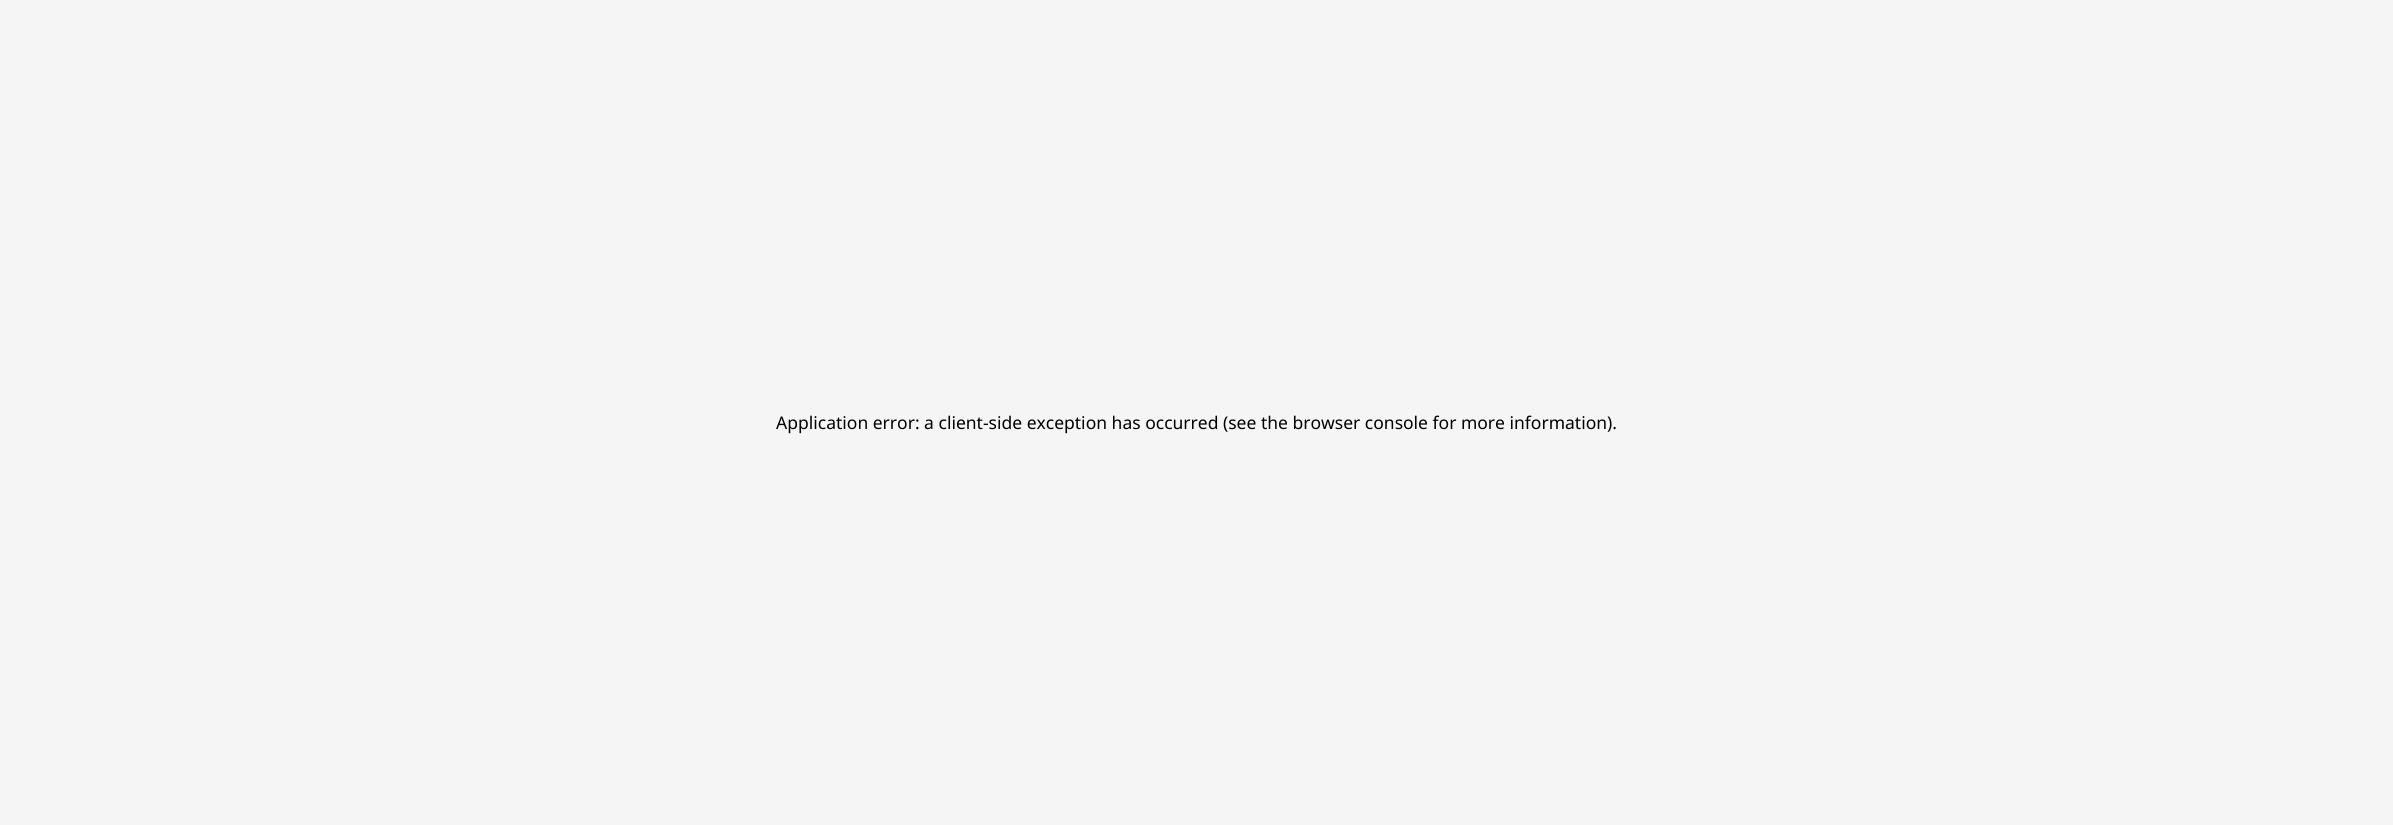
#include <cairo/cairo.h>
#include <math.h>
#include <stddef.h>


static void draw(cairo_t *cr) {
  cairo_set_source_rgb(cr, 245 / 255.0, 245 / 255.0, 245 / 255.0);
  cairo_paint(cr);
  cairo_select_font_face(cr, "Noto Sans", CAIRO_FONT_SLANT_NORMAL, CAIRO_FONT_WEIGHT_NORMAL);
  cairo_set_font_size(cr, 17.5);
  cairo_set_source_rgb(cr, 0, 0, 0);
  cairo_move_to(cr, 776, 429);
  cairo_show_text(cr, "Application error: a client-side exception has occurred (see the browser console for more information).");
}

int main(void) {
  cairo_surface_t *surface = cairo_image_surface_create(CAIRO_FORMAT_RGB24, 2393, 825);
  cairo_t *cr = cairo_create(surface);
  cairo_font_options_t *options = cairo_font_options_create();
  cairo_font_options_set_hint_metrics(options, CAIRO_HINT_METRICS_OFF);
  cairo_font_options_set_hint_style(options, CAIRO_HINT_STYLE_NONE);
  cairo_set_font_options(cr, options);
  cairo_set_miter_limit(cr, 4);
  draw(cr);
  cairo_surface_write_to_png(surface, "out.png");
  cairo_font_options_destroy(options);
  cairo_destroy(cr);
  cairo_surface_destroy(surface);
  return 0;
}
